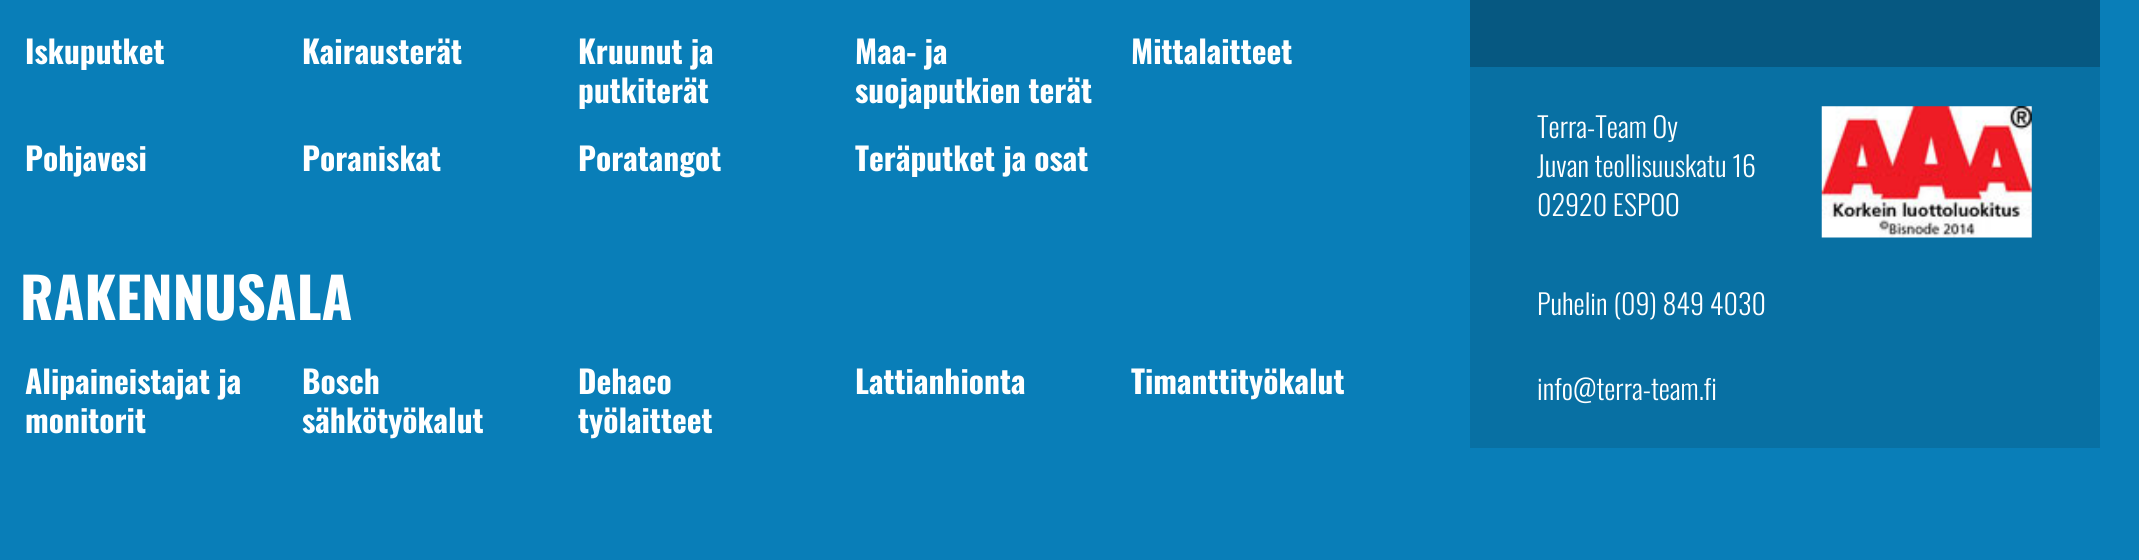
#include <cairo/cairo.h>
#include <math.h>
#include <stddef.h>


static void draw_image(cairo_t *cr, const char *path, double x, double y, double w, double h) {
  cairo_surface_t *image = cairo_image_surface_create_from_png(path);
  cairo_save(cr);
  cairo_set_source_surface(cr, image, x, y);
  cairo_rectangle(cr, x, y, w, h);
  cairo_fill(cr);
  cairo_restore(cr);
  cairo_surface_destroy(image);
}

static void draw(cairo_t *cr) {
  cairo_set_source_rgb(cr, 9 / 255.0, 126 / 255.0, 184 / 255.0);
  cairo_paint(cr);
  cairo_set_source_rgb(cr, 6 / 255.0, 88 / 255.0, 129 / 255.0);
  cairo_rectangle(cr, 1470, 0, 630, 67);
  cairo_fill(cr);
  cairo_set_source_rgb(cr, 8 / 255.0, 112 / 255.0, 163 / 255.0);
  cairo_rectangle(cr, 1470, 67, 630, 381);
  cairo_fill(cr);
  draw_image(cr, "images/1.png", 1821, 106, 211, 132);
  cairo_select_font_face(cr, "Oswald", CAIRO_FONT_SLANT_NORMAL, CAIRO_FONT_WEIGHT_BOLD);
  cairo_set_font_size(cr, 31.5);
  cairo_set_source_rgb(cr, 1, 1, 1);
  cairo_move_to(cr, 25, 64);
  cairo_show_text(cr, "Iskuputket");
  cairo_move_to(cr, 302, 64);
  cairo_show_text(cr, "Kairausterät");
  cairo_move_to(cr, 578, 64);
  cairo_show_text(cr, "Kruunut ja");
  cairo_move_to(cr, 578, 103);
  cairo_show_text(cr, "putkiterät");
  cairo_move_to(cr, 855, 64);
  cairo_show_text(cr, "Maa- ja");
  cairo_move_to(cr, 855, 103);
  cairo_show_text(cr, "suojaputkien terät");
  cairo_move_to(cr, 1131, 64);
  cairo_show_text(cr, "Mittalaitteet");
  cairo_move_to(cr, 25, 171);
  cairo_show_text(cr, "Pohjavesi");
  cairo_move_to(cr, 302, 171);
  cairo_show_text(cr, "Poraniskat");
  cairo_move_to(cr, 578, 171);
  cairo_show_text(cr, "Poratangot");
  cairo_move_to(cr, 855, 171);
  cairo_show_text(cr, "Teräputket ja osat");
  cairo_set_font_size(cr, 56);
  cairo_move_to(cr, 20, 320);
  cairo_show_text(cr, "RAKENNUSALA");
  cairo_set_font_size(cr, 31.5);
  cairo_move_to(cr, 25, 394);
  cairo_show_text(cr, "Alipaineistajat ja");
  cairo_move_to(cr, 25, 433);
  cairo_show_text(cr, "monitorit");
  cairo_move_to(cr, 302, 394);
  cairo_show_text(cr, "Bosch");
  cairo_move_to(cr, 302, 433);
  cairo_show_text(cr, "sähkötyökalut");
  cairo_move_to(cr, 578, 394);
  cairo_show_text(cr, "Dehaco");
  cairo_move_to(cr, 578, 433);
  cairo_show_text(cr, "työlaitteet");
  cairo_move_to(cr, 855, 394);
  cairo_show_text(cr, "Lattianhionta");
  cairo_move_to(cr, 1131, 394);
  cairo_show_text(cr, "Timanttityökalut");
  cairo_select_font_face(cr, "Oswald Light", CAIRO_FONT_SLANT_NORMAL, CAIRO_FONT_WEIGHT_NORMAL);
  cairo_set_font_size(cr, 28);
  cairo_move_to(cr, 1537, 138);
  cairo_show_text(cr, "Terra-Team Oy");
  cairo_move_to(cr, 1537, 177);
  cairo_show_text(cr, "Juvan teollisuuskatu 16");
  cairo_move_to(cr, 1537, 216);
  cairo_show_text(cr, "02920 ESPOO");
  cairo_move_to(cr, 1537, 315);
  cairo_show_text(cr, "Puhelin (09) 849 4030");
  cairo_move_to(cr, 1537, 400);
  cairo_show_text(cr, "info@terra-team.fi");
}

int main(void) {
  cairo_surface_t *surface = cairo_image_surface_create(CAIRO_FORMAT_RGB24, 2139, 560);
  cairo_t *cr = cairo_create(surface);
  cairo_font_options_t *options = cairo_font_options_create();
  cairo_font_options_set_hint_metrics(options, CAIRO_HINT_METRICS_OFF);
  cairo_font_options_set_hint_style(options, CAIRO_HINT_STYLE_NONE);
  cairo_set_font_options(cr, options);
  cairo_set_miter_limit(cr, 4);
  draw(cr);
  cairo_surface_write_to_png(surface, "out.png");
  cairo_font_options_destroy(options);
  cairo_destroy(cr);
  cairo_surface_destroy(surface);
  return 0;
}
